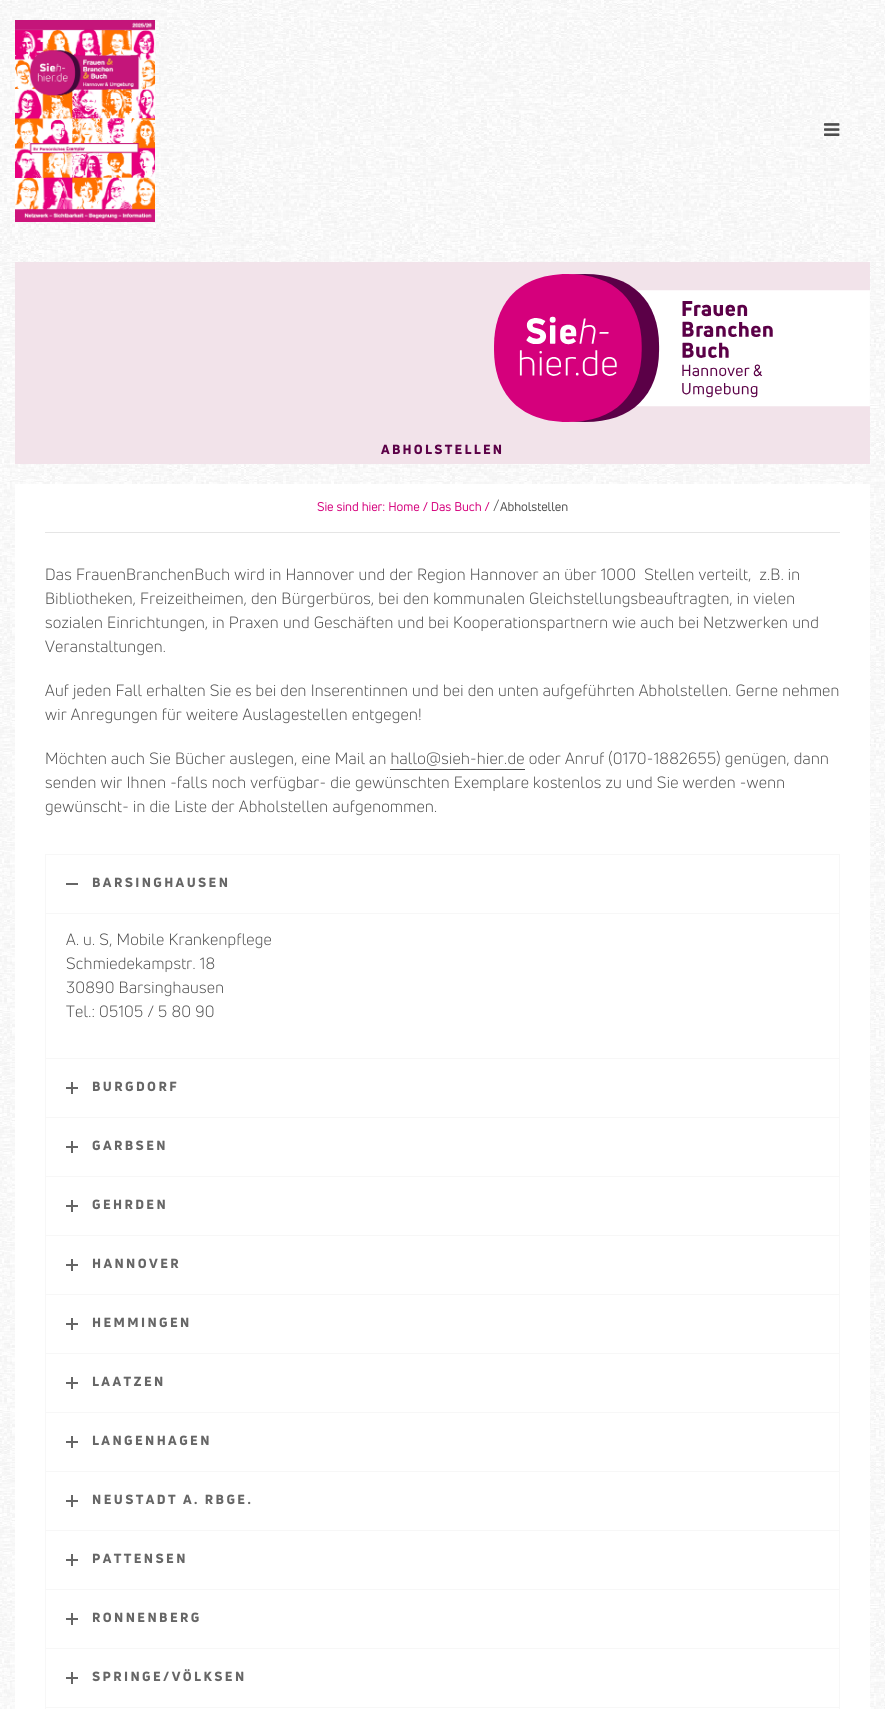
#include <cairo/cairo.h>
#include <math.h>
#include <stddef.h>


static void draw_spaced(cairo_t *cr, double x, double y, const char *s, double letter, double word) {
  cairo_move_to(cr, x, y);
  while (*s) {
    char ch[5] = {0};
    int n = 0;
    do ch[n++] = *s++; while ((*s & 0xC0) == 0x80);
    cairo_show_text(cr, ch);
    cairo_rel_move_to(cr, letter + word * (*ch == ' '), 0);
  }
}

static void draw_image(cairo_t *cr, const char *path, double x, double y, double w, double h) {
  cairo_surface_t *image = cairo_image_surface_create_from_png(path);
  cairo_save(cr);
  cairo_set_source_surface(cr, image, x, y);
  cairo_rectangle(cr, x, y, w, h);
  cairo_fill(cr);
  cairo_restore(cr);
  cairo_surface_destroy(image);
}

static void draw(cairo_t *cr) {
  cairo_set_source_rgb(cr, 1, 1, 1);
  cairo_paint(cr);
  draw_image(cr, "images/1.png", 0, 0, 885, 1709);
  draw_image(cr, "images/2.png", 15, 20, 140, 202);
  draw_image(cr, "images/3.png", 824, 123, 16, 13);
  cairo_set_source_rgb(cr, 242 / 255.0, 227 / 255.0, 234 / 255.0);
  cairo_rectangle(cr, 15, 262, 855, 202);
  cairo_fill(cr);
  draw_image(cr, "images/4.png", 494, 274, 376, 148);
  cairo_set_source_rgb(cr, 1, 1, 1);
  cairo_rectangle(cr, 15, 484, 855, 1225);
  cairo_fill(cr);
  cairo_set_source_rgb(cr, 229 / 255.0, 229 / 255.0, 229 / 255.0);
  cairo_rectangle(cr, 45, 532, 795, 1);
  cairo_fill(cr);
  cairo_set_source_rgb(cr, 77 / 255.0, 77 / 255.0, 77 / 255.0);
  cairo_rectangle(cr, 390, 769, 135, 1);
  cairo_fill(cr);
  cairo_rectangle(cr, 45.5, 854.5, 794, 59);
  cairo_set_source_rgb(cr, 247 / 255.0, 247 / 255.0, 247 / 255.0);
  cairo_set_line_width(cr, 1);
  cairo_stroke(cr);
  cairo_set_source_rgb(cr, 102 / 255.0, 102 / 255.0, 102 / 255.0);
  cairo_rectangle(cr, 66, 883, 12, 2);
  cairo_fill(cr);
  cairo_rectangle(cr, 45.5, 1058.5, 794, 59);
  cairo_set_source_rgb(cr, 247 / 255.0, 247 / 255.0, 247 / 255.0);
  cairo_stroke(cr);
  cairo_rectangle(cr, 45.5, 913.5, 794, 145);
  cairo_stroke(cr);
  cairo_set_source_rgb(cr, 102 / 255.0, 102 / 255.0, 102 / 255.0);
  cairo_rectangle(cr, 66, 1087, 12, 2);
  cairo_fill(cr);
  cairo_rectangle(cr, 71, 1082, 2, 12);
  cairo_fill(cr);
  cairo_rectangle(cr, 45.5, 1117.5, 794, 59);
  cairo_set_source_rgb(cr, 247 / 255.0, 247 / 255.0, 247 / 255.0);
  cairo_stroke(cr);
  cairo_set_source_rgb(cr, 102 / 255.0, 102 / 255.0, 102 / 255.0);
  cairo_rectangle(cr, 66, 1146, 12, 2);
  cairo_fill(cr);
  cairo_rectangle(cr, 71, 1141, 2, 12);
  cairo_fill(cr);
  cairo_rectangle(cr, 45.5, 1176.5, 794, 59);
  cairo_set_source_rgb(cr, 247 / 255.0, 247 / 255.0, 247 / 255.0);
  cairo_stroke(cr);
  cairo_set_source_rgb(cr, 102 / 255.0, 102 / 255.0, 102 / 255.0);
  cairo_rectangle(cr, 66, 1205, 12, 2);
  cairo_fill(cr);
  cairo_rectangle(cr, 71, 1200, 2, 12);
  cairo_fill(cr);
  cairo_rectangle(cr, 45.5, 1235.5, 794, 59);
  cairo_set_source_rgb(cr, 247 / 255.0, 247 / 255.0, 247 / 255.0);
  cairo_stroke(cr);
  cairo_set_source_rgb(cr, 102 / 255.0, 102 / 255.0, 102 / 255.0);
  cairo_rectangle(cr, 66, 1264, 12, 2);
  cairo_fill(cr);
  cairo_rectangle(cr, 71, 1259, 2, 12);
  cairo_fill(cr);
  cairo_rectangle(cr, 45.5, 1294.5, 794, 59);
  cairo_set_source_rgb(cr, 247 / 255.0, 247 / 255.0, 247 / 255.0);
  cairo_stroke(cr);
  cairo_set_source_rgb(cr, 102 / 255.0, 102 / 255.0, 102 / 255.0);
  cairo_rectangle(cr, 66, 1323, 12, 2);
  cairo_fill(cr);
  cairo_rectangle(cr, 71, 1318, 2, 12);
  cairo_fill(cr);
  cairo_rectangle(cr, 45.5, 1353.5, 794, 59);
  cairo_set_source_rgb(cr, 247 / 255.0, 247 / 255.0, 247 / 255.0);
  cairo_stroke(cr);
  cairo_set_source_rgb(cr, 102 / 255.0, 102 / 255.0, 102 / 255.0);
  cairo_rectangle(cr, 66, 1382, 12, 2);
  cairo_fill(cr);
  cairo_rectangle(cr, 71, 1377, 2, 12);
  cairo_fill(cr);
  cairo_rectangle(cr, 45.5, 1412.5, 794, 59);
  cairo_set_source_rgb(cr, 247 / 255.0, 247 / 255.0, 247 / 255.0);
  cairo_stroke(cr);
  cairo_set_source_rgb(cr, 102 / 255.0, 102 / 255.0, 102 / 255.0);
  cairo_rectangle(cr, 66, 1441, 12, 2);
  cairo_fill(cr);
  cairo_rectangle(cr, 71, 1436, 2, 12);
  cairo_fill(cr);
  cairo_rectangle(cr, 45.5, 1471.5, 794, 59);
  cairo_set_source_rgb(cr, 247 / 255.0, 247 / 255.0, 247 / 255.0);
  cairo_stroke(cr);
  cairo_set_source_rgb(cr, 102 / 255.0, 102 / 255.0, 102 / 255.0);
  cairo_rectangle(cr, 66, 1500, 12, 2);
  cairo_fill(cr);
  cairo_rectangle(cr, 71, 1495, 2, 12);
  cairo_fill(cr);
  cairo_rectangle(cr, 45.5, 1530.5, 794, 59);
  cairo_set_source_rgb(cr, 247 / 255.0, 247 / 255.0, 247 / 255.0);
  cairo_stroke(cr);
  cairo_set_source_rgb(cr, 102 / 255.0, 102 / 255.0, 102 / 255.0);
  cairo_rectangle(cr, 66, 1559, 12, 2);
  cairo_fill(cr);
  cairo_rectangle(cr, 71, 1554, 2, 12);
  cairo_fill(cr);
  cairo_rectangle(cr, 45.5, 1589.5, 794, 59);
  cairo_set_source_rgb(cr, 247 / 255.0, 247 / 255.0, 247 / 255.0);
  cairo_stroke(cr);
  cairo_set_source_rgb(cr, 102 / 255.0, 102 / 255.0, 102 / 255.0);
  cairo_rectangle(cr, 66, 1618, 12, 2);
  cairo_fill(cr);
  cairo_rectangle(cr, 71, 1613, 2, 12);
  cairo_fill(cr);
  cairo_rectangle(cr, 45.5, 1648.5, 794, 59);
  cairo_set_source_rgb(cr, 247 / 255.0, 247 / 255.0, 247 / 255.0);
  cairo_stroke(cr);
  cairo_set_source_rgb(cr, 102 / 255.0, 102 / 255.0, 102 / 255.0);
  cairo_rectangle(cr, 66, 1677, 12, 2);
  cairo_fill(cr);
  cairo_rectangle(cr, 71, 1672, 2, 12);
  cairo_fill(cr);
  cairo_rectangle(cr, 45.5, 1707.5, 794, 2);
  cairo_set_source_rgb(cr, 247 / 255.0, 247 / 255.0, 247 / 255.0);
  cairo_stroke(cr);
  cairo_select_font_face(cr, "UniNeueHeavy", CAIRO_FONT_SLANT_NORMAL, CAIRO_FONT_WEIGHT_NORMAL);
  cairo_set_font_size(cr, 13);
  cairo_set_source_rgb(cr, 91 / 255.0, 0, 71 / 255.0);
  draw_spaced(cr, 381, 454, "ABHOLSTELLEN", 2.25, 0);
  cairo_select_font_face(cr, "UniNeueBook", CAIRO_FONT_SLANT_NORMAL, CAIRO_FONT_WEIGHT_BOLD);
  cairo_set_font_size(cr, 12);
  cairo_set_source_rgb(cr, 213 / 255.0, 0, 124 / 255.0);
  draw_spaced(cr, 317, 511, "Sie sind hier: Home / Das Buch /", 0.25, 0);
  cairo_select_font_face(cr, "UniNeueBook", CAIRO_FONT_SLANT_NORMAL, CAIRO_FONT_WEIGHT_NORMAL);
  cairo_set_font_size(cr, 16);
  cairo_set_source_rgb(cr, 77 / 255.0, 77 / 255.0, 77 / 255.0);
  draw_spaced(cr, 493, 511, "/", 0.25, 0);
  cairo_select_font_face(cr, "UniNeueBook", CAIRO_FONT_SLANT_NORMAL, CAIRO_FONT_WEIGHT_BOLD);
  cairo_set_font_size(cr, 12);
  draw_spaced(cr, 500, 511, "Abholstellen", 0.25, 0);
  cairo_select_font_face(cr, "UniNeueBook", CAIRO_FONT_SLANT_NORMAL, CAIRO_FONT_WEIGHT_NORMAL);
  cairo_set_font_size(cr, 16);
  draw_spaced(cr, 45, 580, "Das FrauenBranchenBuch wird in Hannover und der Region Hannover an über 1000  Stellen verteilt,  z.B. in", 0.25, 0);
  draw_spaced(cr, 45, 604, "Bibliotheken, Freizeitheimen, den Bürgerbüros, bei den kommunalen Gleichstellungsbeauftragten, in vielen", 0.25, 0);
  draw_spaced(cr, 45, 628, "sozialen Einrichtungen, in Praxen und Geschäften und bei Kooperationspartnern wie auch bei Netzwerken und", 0.25, 0);
  draw_spaced(cr, 45, 652, "Veranstaltungen.", 0.25, 0);
  draw_spaced(cr, 45, 696, "Auf jeden Fall erhalten Sie es bei den Inserentinnen und bei den unten aufgeführten Abholstellen. Gerne nehmen", 0.25, 0);
  draw_spaced(cr, 45, 720, "wir Anregungen für weitere Auslagestellen entgegen!", 0.25, 0);
  draw_spaced(cr, 45, 764, "Möchten auch Sie Bücher auslegen, eine Mail an hallo@sieh-hier.de oder Anruf (0170-1882655) genügen, dann", 0.25, 0);
  draw_spaced(cr, 45, 788, "senden wir Ihnen -falls noch verfügbar- die gewünschten Exemplare kostenlos zu und Sie werden -wenn", 0.25, 0);
  draw_spaced(cr, 45, 812, "gewünscht- in die Liste der Abholstellen aufgenommen.", 0.25, 0);
  cairo_select_font_face(cr, "UniNeueHeavy", CAIRO_FONT_SLANT_NORMAL, CAIRO_FONT_WEIGHT_NORMAL);
  cairo_set_font_size(cr, 13);
  cairo_set_source_rgb(cr, 102 / 255.0, 102 / 255.0, 102 / 255.0);
  draw_spaced(cr, 92, 887, "BARSINGHAUSEN", 2.4, 0);
  cairo_select_font_face(cr, "UniNeueBook", CAIRO_FONT_SLANT_NORMAL, CAIRO_FONT_WEIGHT_NORMAL);
  cairo_set_font_size(cr, 16);
  cairo_set_source_rgb(cr, 77 / 255.0, 77 / 255.0, 77 / 255.0);
  draw_spaced(cr, 66, 945, "A. u. S, Mobile Krankenpflege", 0.25, 0);
  draw_spaced(cr, 66, 969, "Schmiedekampstr. 18", 0.25, 0);
  draw_spaced(cr, 66, 993, "30890 Barsinghausen", 0.25, 0);
  draw_spaced(cr, 66, 1017, "Tel.: 05105 / 5 80 90", 0.25, 0);
  cairo_select_font_face(cr, "UniNeueHeavy", CAIRO_FONT_SLANT_NORMAL, CAIRO_FONT_WEIGHT_NORMAL);
  cairo_set_font_size(cr, 13);
  cairo_set_source_rgb(cr, 102 / 255.0, 102 / 255.0, 102 / 255.0);
  draw_spaced(cr, 92, 1091, "BURGDORF", 2.4, 0);
  draw_spaced(cr, 92, 1150, "GARBSEN", 2.4, 0);
  draw_spaced(cr, 92, 1209, "GEHRDEN", 2.4, 0);
  draw_spaced(cr, 92, 1268, "HANNOVER", 2.4, 0);
  draw_spaced(cr, 92, 1327, "HEMMINGEN", 2.4, 0);
  draw_spaced(cr, 92, 1386, "LAATZEN", 2.4, 0);
  draw_spaced(cr, 92, 1445, "LANGENHAGEN", 2.4, 0);
  draw_spaced(cr, 92, 1504, "NEUSTADT A. RBGE.", 2.4, 0);
  draw_spaced(cr, 92, 1563, "PATTENSEN", 2.4, 0);
  draw_spaced(cr, 92, 1622, "RONNENBERG", 2.4, 0);
  draw_spaced(cr, 92, 1681, "SPRINGE/VÖLKSEN", 2.4, 0);
}

int main(void) {
  cairo_surface_t *surface = cairo_image_surface_create(CAIRO_FORMAT_RGB24, 885, 1709);
  cairo_t *cr = cairo_create(surface);
  cairo_font_options_t *options = cairo_font_options_create();
  cairo_font_options_set_hint_metrics(options, CAIRO_HINT_METRICS_OFF);
  cairo_font_options_set_hint_style(options, CAIRO_HINT_STYLE_NONE);
  cairo_set_font_options(cr, options);
  cairo_set_miter_limit(cr, 4);
  draw(cr);
  cairo_surface_write_to_png(surface, "out.png");
  cairo_font_options_destroy(options);
  cairo_destroy(cr);
  cairo_surface_destroy(surface);
  return 0;
}
